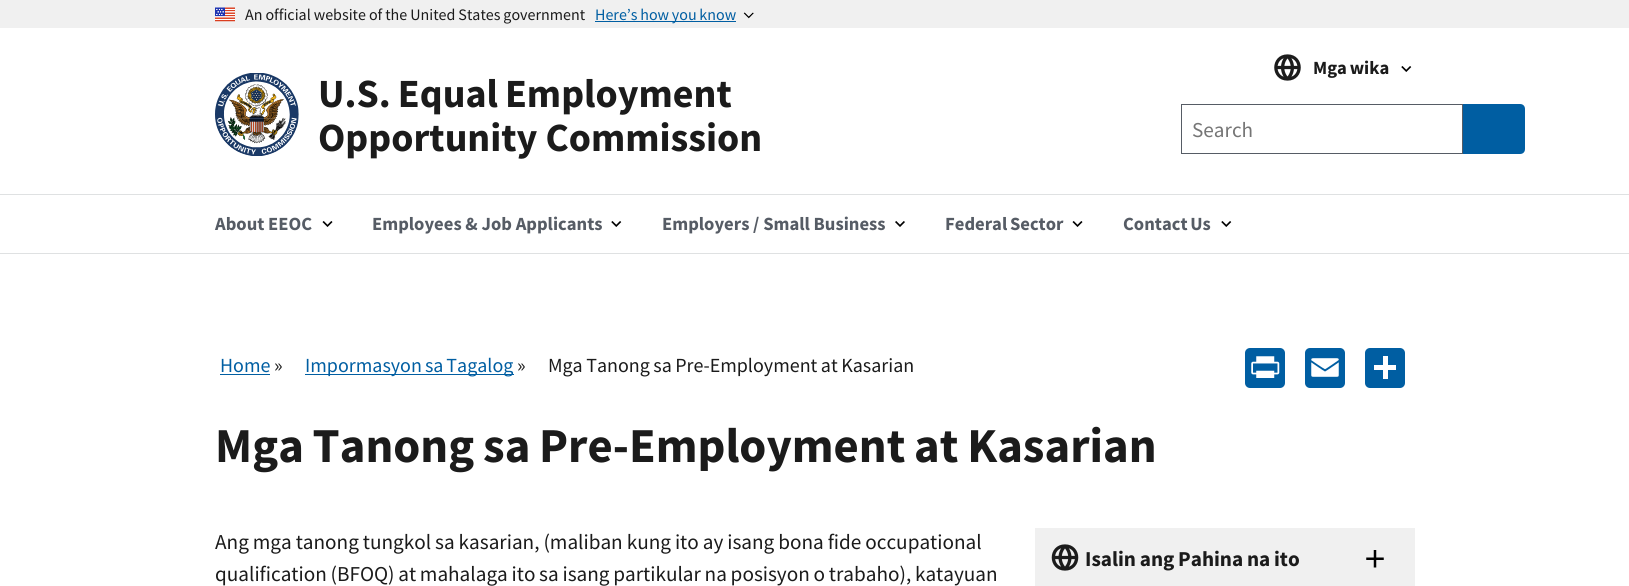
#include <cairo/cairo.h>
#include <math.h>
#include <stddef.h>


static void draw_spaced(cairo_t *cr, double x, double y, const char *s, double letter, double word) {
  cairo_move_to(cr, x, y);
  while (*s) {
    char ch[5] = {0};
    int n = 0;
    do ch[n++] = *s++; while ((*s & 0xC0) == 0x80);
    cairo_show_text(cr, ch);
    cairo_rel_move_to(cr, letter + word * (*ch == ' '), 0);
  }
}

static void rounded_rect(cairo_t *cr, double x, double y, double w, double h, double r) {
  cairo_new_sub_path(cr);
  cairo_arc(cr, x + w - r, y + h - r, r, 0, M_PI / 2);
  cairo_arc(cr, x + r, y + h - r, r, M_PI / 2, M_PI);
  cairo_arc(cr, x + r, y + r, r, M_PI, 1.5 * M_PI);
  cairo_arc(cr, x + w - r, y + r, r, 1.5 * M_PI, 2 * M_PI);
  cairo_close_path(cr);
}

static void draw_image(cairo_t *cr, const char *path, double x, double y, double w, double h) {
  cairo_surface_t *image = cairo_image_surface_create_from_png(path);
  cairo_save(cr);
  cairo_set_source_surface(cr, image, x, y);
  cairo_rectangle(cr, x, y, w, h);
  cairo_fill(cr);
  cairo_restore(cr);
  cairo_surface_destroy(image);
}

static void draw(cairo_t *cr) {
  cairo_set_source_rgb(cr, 1, 1, 1);
  cairo_paint(cr);
  cairo_set_source_rgb(cr, 240 / 255.0, 240 / 255.0, 240 / 255.0);
  cairo_rectangle(cr, 0, 0, 1629, 28);
  cairo_fill(cr);
  draw_image(cr, "images/1.png", 215, 7, 20, 15);
  cairo_set_source_rgb(cr, 0, 94 / 255.0, 162 / 255.0);
  cairo_rectangle(cr, 595, 21, 141, 1);
  cairo_fill(cr);
  draw_image(cr, "images/2.png", 743, 12, 11, 7);
  cairo_set_source_rgb(cr, 223 / 255.0, 225 / 255.0, 226 / 255.0);
  cairo_rectangle(cr, 0, 194, 1629, 1);
  cairo_fill(cr);
  cairo_new_path(cr);
  cairo_move_to(cr, 1287.5, 79);
  cairo_curve_to(cr, 1303, 79, 1303, 56, 1287.5, 56);
  cairo_curve_to(cr, 1272, 56, 1272, 79, 1287.5, 79);
  cairo_close_path(cr);
  cairo_move_to(cr, 1276, 67.5);
  cairo_line_to(cr, 1299, 67.5);
  cairo_move_to(cr, 1287.5, 56);
  cairo_curve_to(cr, 1294, 62.5, 1294, 72.5, 1287.5, 79);
  cairo_curve_to(cr, 1281, 72.5, 1281, 62.5, 1287.5, 56);
  cairo_close_path(cr);
  cairo_set_source_rgb(cr, 28 / 255.0, 28 / 255.0, 28 / 255.0);
  cairo_set_line_width(cr, 3.3);
  cairo_set_line_cap(cr, CAIRO_LINE_CAP_ROUND);
  cairo_set_line_join(cr, CAIRO_LINE_JOIN_ROUND);
  cairo_stroke(cr);
  draw_image(cr, "images/3.png", 1401, 66, 11, 6);
  draw_image(cr, "images/4.png", 322, 221, 11, 6);
  draw_image(cr, "images/3.png", 611, 221, 11, 6);
  draw_image(cr, "images/5.png", 895, 221, 10, 6);
  draw_image(cr, "images/4.png", 1072, 221, 11, 6);
  draw_image(cr, "images/3.png", 1221, 221, 11, 6);
  draw_image(cr, "images/6.png", 215, 73, 84, 83);
  cairo_rectangle(cr, 1181.5, 104.5, 281, 49);
  cairo_set_source_rgb(cr, 86 / 255.0, 92 / 255.0, 101 / 255.0);
  cairo_set_line_width(cr, 1);
  cairo_set_line_cap(cr, CAIRO_LINE_CAP_BUTT);
  cairo_set_line_join(cr, CAIRO_LINE_JOIN_MITER);
  cairo_stroke(cr);
  cairo_set_source_rgb(cr, 0, 94 / 255.0, 162 / 255.0);
  cairo_new_path(cr);
  cairo_move_to(cr, 1463, 104);
  cairo_line_to(cr, 1520, 104);
  cairo_curve_to(cr, 1523, 104, 1525, 106, 1525, 109);
  cairo_line_to(cr, 1525, 149);
  cairo_curve_to(cr, 1525, 152, 1523, 154, 1520, 154);
  cairo_line_to(cr, 1463, 154);
  cairo_close_path(cr);
  cairo_fill(cr);
  cairo_set_source_rgb(cr, 223 / 255.0, 225 / 255.0, 226 / 255.0);
  cairo_rectangle(cr, 0, 253, 1629, 1);
  cairo_fill(cr);
  cairo_set_source_rgb(cr, 0, 94 / 255.0, 162 / 255.0);
  cairo_rectangle(cr, 220, 374, 50, 1);
  cairo_fill(cr);
  cairo_rectangle(cr, 305, 374, 209, 1);
  cairo_fill(cr);
  rounded_rect(cr, 1245, 348, 40, 40, 5);
  cairo_fill(cr);
  draw_image(cr, "images/7.png", 1251, 356, 29, 22);
  rounded_rect(cr, 1305, 348, 40, 40, 5);
  cairo_fill(cr);
  draw_image(cr, "images/8.png", 1311, 358, 28, 19);
  rounded_rect(cr, 1365, 348, 40, 40, 5);
  cairo_fill(cr);
  cairo_set_source_rgb(cr, 1, 1, 1);
  cairo_rectangle(cr, 1383, 356, 5, 23);
  cairo_fill(cr);
  cairo_rectangle(cr, 1374, 365, 22, 5);
  cairo_fill(cr);
  cairo_set_source_rgb(cr, 240 / 255.0, 240 / 255.0, 240 / 255.0);
  cairo_rectangle(cr, 1035, 528, 380, 58);
  cairo_fill(cr);
  draw_image(cr, "images/9.png", 1366, 550, 18, 18);
  cairo_new_path(cr);
  cairo_move_to(cr, 1065, 569);
  cairo_curve_to(cr, 1080.5, 569, 1080.5, 546, 1065, 546);
  cairo_curve_to(cr, 1049.5, 546, 1049.5, 569, 1065, 569);
  cairo_close_path(cr);
  cairo_move_to(cr, 1053.5, 557.5);
  cairo_line_to(cr, 1076.5, 557.5);
  cairo_move_to(cr, 1065, 546);
  cairo_curve_to(cr, 1071.5, 552.5, 1071.5, 562.5, 1065, 569);
  cairo_curve_to(cr, 1058.5, 562.5, 1058.5, 552.5, 1065, 546);
  cairo_close_path(cr);
  cairo_set_source_rgb(cr, 28 / 255.0, 28 / 255.0, 28 / 255.0);
  cairo_set_line_width(cr, 3.3);
  cairo_set_line_cap(cr, CAIRO_LINE_CAP_ROUND);
  cairo_set_line_join(cr, CAIRO_LINE_JOIN_ROUND);
  cairo_stroke(cr);
  cairo_select_font_face(cr, "Source Sans Pro", CAIRO_FONT_SLANT_NORMAL, CAIRO_FONT_WEIGHT_NORMAL);
  cairo_set_font_size(cr, 16);
  cairo_set_source_rgb(cr, 27 / 255.0, 27 / 255.0, 27 / 255.0);
  draw_spaced(cr, 245, 20, "An official website of the United States government", 0, -0.25);
  cairo_set_source_rgb(cr, 0, 94 / 255.0, 162 / 255.0);
  draw_spaced(cr, 595, 20, "Here’s how you know", 0, -0.5);
  cairo_select_font_face(cr, "Source Sans Pro", CAIRO_FONT_SLANT_NORMAL, CAIRO_FONT_WEIGHT_BOLD);
  cairo_set_font_size(cr, 18.6);
  cairo_set_source_rgb(cr, 27 / 255.0, 27 / 255.0, 27 / 255.0);
  draw_spaced(cr, 1313, 74, "Mga wika", 0, -1);
  cairo_set_source_rgb(cr, 86 / 255.0, 92 / 255.0, 101 / 255.0);
  cairo_move_to(cr, 215, 230);
  cairo_show_text(cr, "About EEOC");
  cairo_move_to(cr, 372, 230);
  cairo_show_text(cr, "Employees & Job Applicants");
  cairo_move_to(cr, 662, 230);
  cairo_show_text(cr, "Employers / Small Business");
  draw_spaced(cr, 945, 230, "Federal Sector", 0, -1);
  draw_spaced(cr, 1123, 230, "Contact Us", 0, -1);
  cairo_set_font_size(cr, 40);
  cairo_set_source_rgb(cr, 27 / 255.0, 27 / 255.0, 27 / 255.0);
  draw_spaced(cr, 318, 107, "U.S. Equal Employment", 0, -1);
  cairo_move_to(cr, 318, 151);
  cairo_show_text(cr, "Opportunity Commission");
  cairo_select_font_face(cr, "Source Sans Pro", CAIRO_FONT_SLANT_NORMAL, CAIRO_FONT_WEIGHT_NORMAL);
  cairo_set_font_size(cr, 21.2);
  cairo_set_source_rgb(cr, 117 / 255.0, 117 / 255.0, 117 / 255.0);
  cairo_move_to(cr, 1192, 137);
  cairo_show_text(cr, "Search");
  cairo_set_font_size(cr, 20);
  cairo_set_source_rgb(cr, 0, 94 / 255.0, 162 / 255.0);
  cairo_move_to(cr, 220, 372);
  cairo_show_text(cr, "Home");
  cairo_set_source_rgb(cr, 27 / 255.0, 27 / 255.0, 27 / 255.0);
  cairo_move_to(cr, 274, 372);
  cairo_show_text(cr, "»");
  cairo_set_source_rgb(cr, 0, 94 / 255.0, 162 / 255.0);
  draw_spaced(cr, 305, 372, "Impormasyon sa Tagalog", 0, -1);
  cairo_set_source_rgb(cr, 27 / 255.0, 27 / 255.0, 27 / 255.0);
  cairo_move_to(cr, 517, 372);
  cairo_show_text(cr, "»");
  draw_spaced(cr, 548, 372, "Mga Tanong sa Pre-Employment at Kasarian", 0, -0.5);
  cairo_select_font_face(cr, "Source Sans Pro", CAIRO_FONT_SLANT_NORMAL, CAIRO_FONT_WEIGHT_BOLD);
  cairo_set_font_size(cr, 48.75);
  draw_spaced(cr, 215, 462, "Mga Tanong sa Pre-Employment at Kasarian", 0, -1);
  cairo_select_font_face(cr, "Source Sans Pro", CAIRO_FONT_SLANT_NORMAL, CAIRO_FONT_WEIGHT_NORMAL);
  cairo_set_font_size(cr, 21.2);
  draw_spaced(cr, 215, 549, "Ang mga tanong tungkol sa kasarian, (maliban kung ito ay isang bona fide occupational", 0, -0.3);
  draw_spaced(cr, 215, 581, "qualification (BFOQ) at mahalaga ito sa isang partikular na posisyon o trabaho), katayuan", 0, -0.5);
  cairo_select_font_face(cr, "Source Sans Pro", CAIRO_FONT_SLANT_NORMAL, CAIRO_FONT_WEIGHT_BOLD);
  draw_spaced(cr, 1085, 566, "Isalin ang Pahina na ito", 0, -0.5);
}

int main(void) {
  cairo_surface_t *surface = cairo_image_surface_create(CAIRO_FORMAT_RGB24, 1629, 586);
  cairo_t *cr = cairo_create(surface);
  cairo_font_options_t *options = cairo_font_options_create();
  cairo_font_options_set_hint_metrics(options, CAIRO_HINT_METRICS_OFF);
  cairo_font_options_set_hint_style(options, CAIRO_HINT_STYLE_NONE);
  cairo_set_font_options(cr, options);
  cairo_set_miter_limit(cr, 4);
  draw(cr);
  cairo_surface_write_to_png(surface, "out.png");
  cairo_font_options_destroy(options);
  cairo_destroy(cr);
  cairo_surface_destroy(surface);
  return 0;
}
